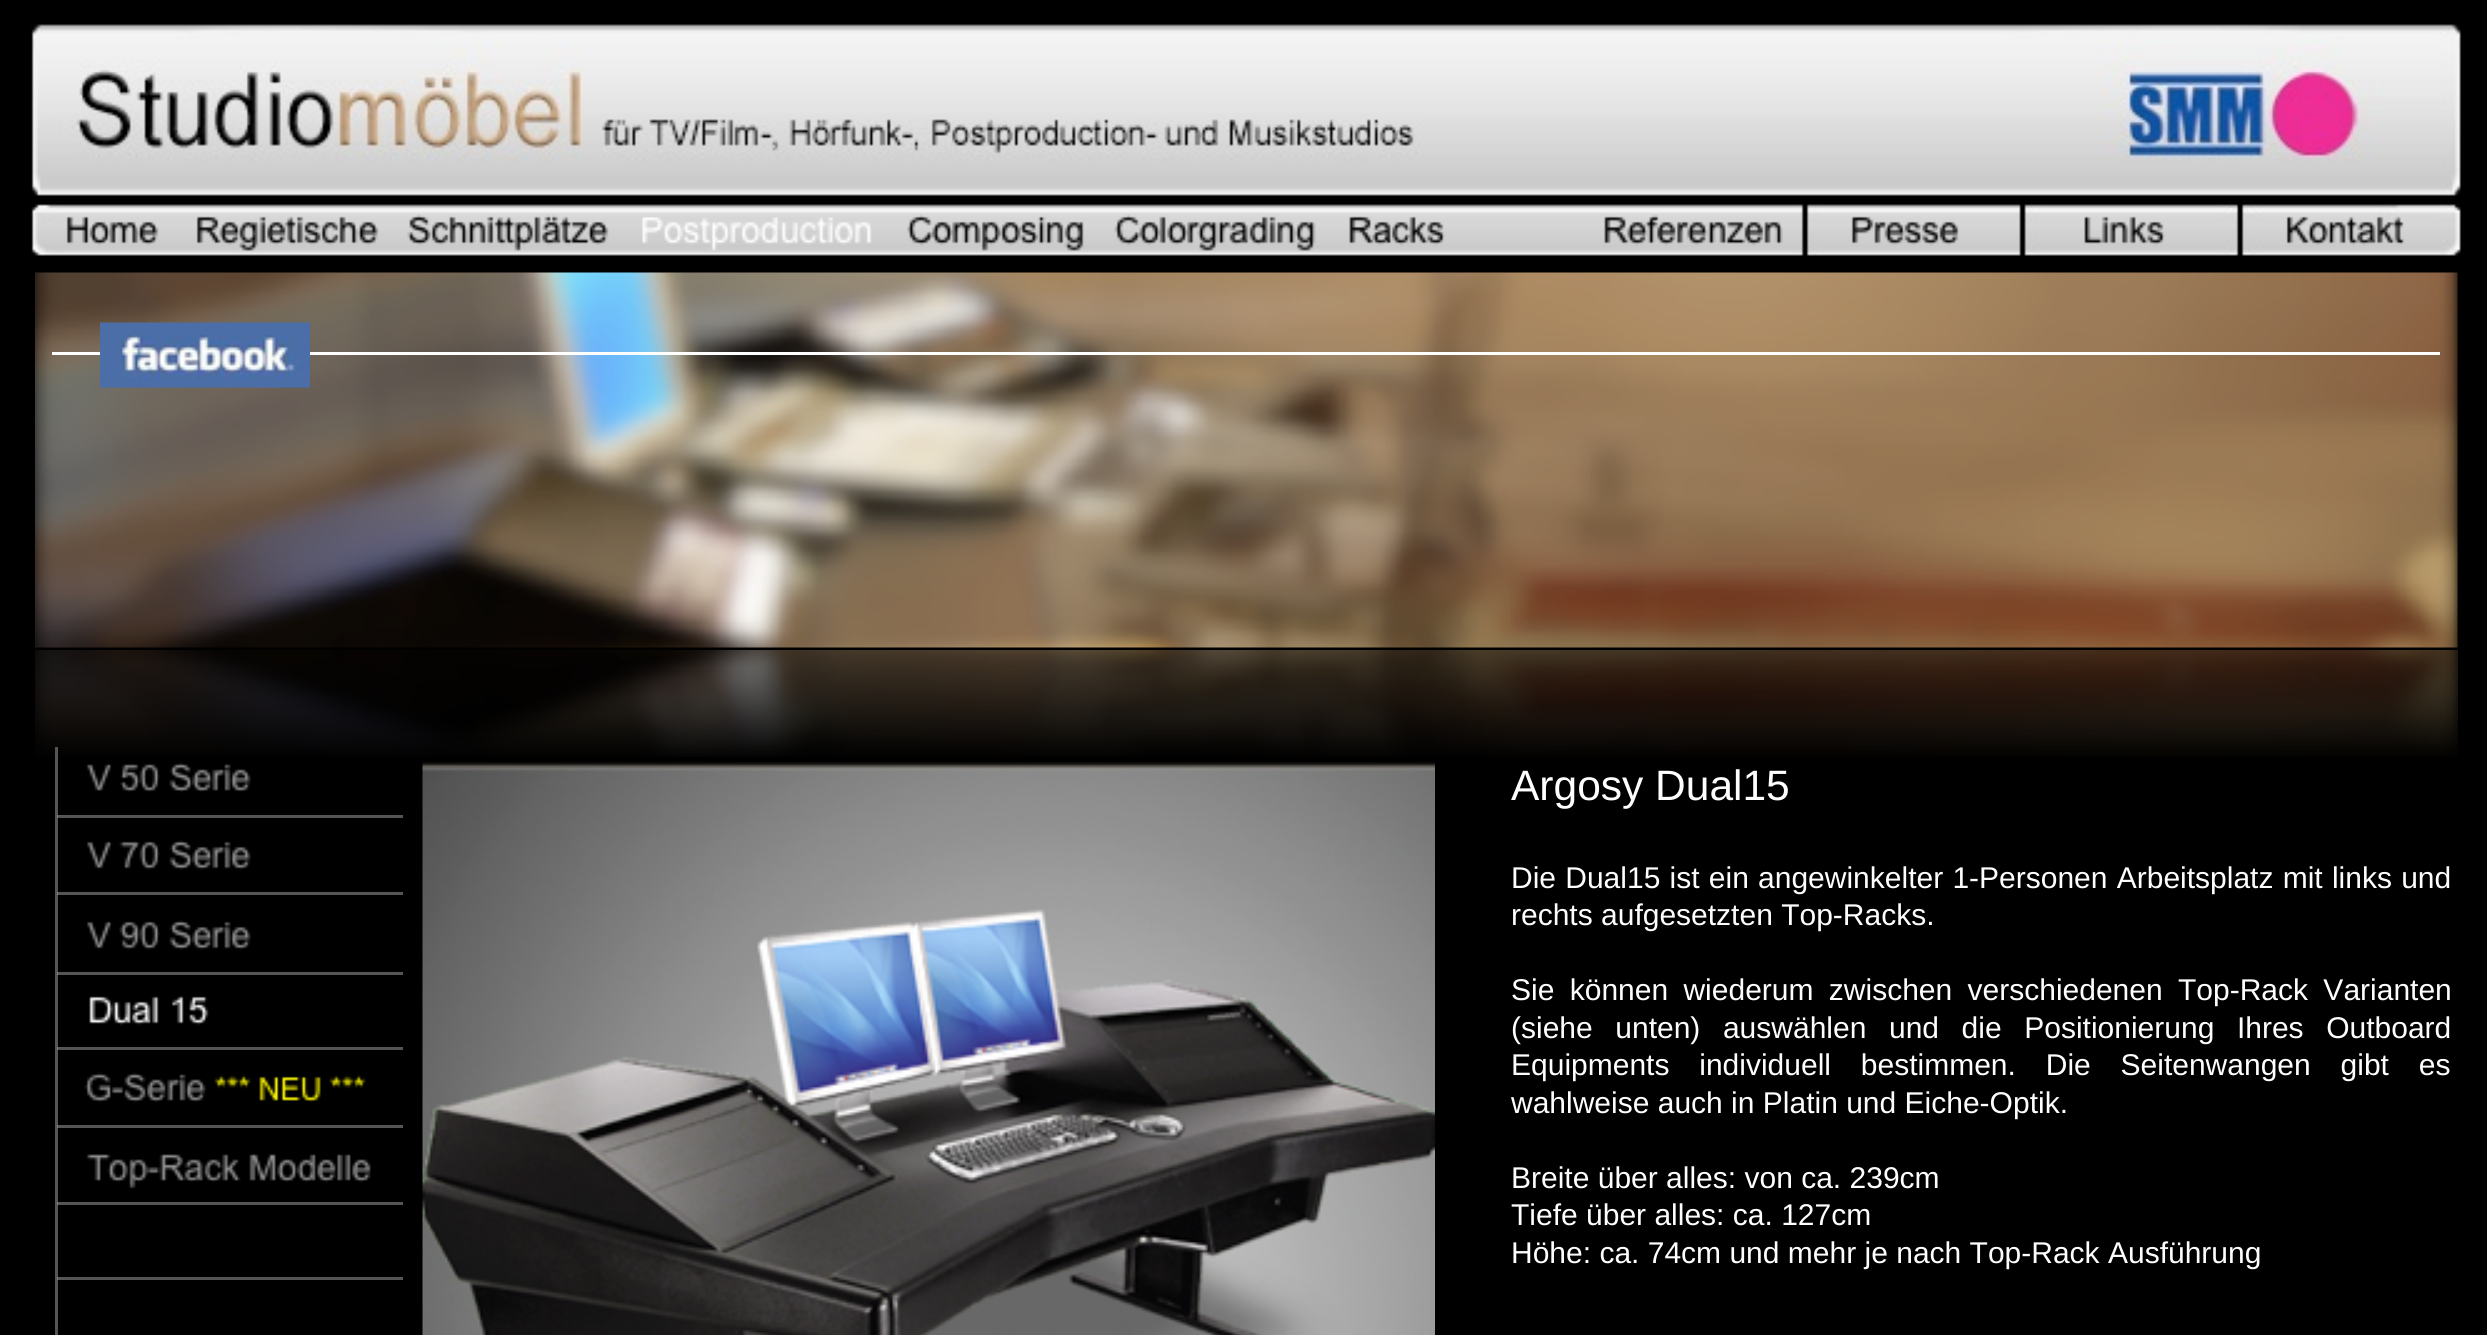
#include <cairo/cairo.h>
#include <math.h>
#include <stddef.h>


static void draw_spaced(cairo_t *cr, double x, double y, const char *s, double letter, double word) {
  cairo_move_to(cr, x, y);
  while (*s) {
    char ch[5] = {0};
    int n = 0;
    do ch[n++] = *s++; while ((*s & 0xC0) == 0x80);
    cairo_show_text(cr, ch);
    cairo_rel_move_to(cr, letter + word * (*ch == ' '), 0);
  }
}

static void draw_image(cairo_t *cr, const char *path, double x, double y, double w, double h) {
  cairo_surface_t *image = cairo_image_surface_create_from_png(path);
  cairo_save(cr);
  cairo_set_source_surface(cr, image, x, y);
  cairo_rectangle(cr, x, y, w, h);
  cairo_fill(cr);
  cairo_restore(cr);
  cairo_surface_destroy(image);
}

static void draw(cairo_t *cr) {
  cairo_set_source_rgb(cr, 0, 0, 0);
  cairo_paint(cr);
  cairo_set_source_rgb(cr, 85 / 255.0, 85 / 255.0, 85 / 255.0);
  cairo_rectangle(cr, 57, 892, 346, 3);
  cairo_fill(cr);
  cairo_rectangle(cr, 57, 1125, 346, 3);
  cairo_fill(cr);
  cairo_rectangle(cr, 57, 815, 346, 3);
  cairo_fill(cr);
  cairo_rectangle(cr, 57, 972, 346, 3);
  cairo_fill(cr);
  cairo_rectangle(cr, 57, 1047, 346, 3);
  cairo_fill(cr);
  cairo_rectangle(cr, 57, 1202, 346, 3);
  cairo_fill(cr);
  cairo_rectangle(cr, 57, 1277, 346, 3);
  cairo_fill(cr);
  draw_image(cr, "images/1.png", 31, 24, 2430, 232);
  draw_image(cr, "images/2.png", 66, 216, 93, 30);
  draw_image(cr, "images/3.png", 196, 216, 183, 35);
  draw_image(cr, "images/4.png", 407, 214, 202, 37);
  draw_image(cr, "images/5.png", 642, 217, 230, 34);
  draw_image(cr, "images/6.png", 907, 214, 177, 37);
  draw_image(cr, "images/7.png", 1114, 214, 202, 37);
  draw_image(cr, "images/8.png", 1349, 216, 96, 30);
  draw_image(cr, "images/9.png", 1604, 214, 179, 32);
  draw_image(cr, "images/10.png", 1851, 216, 108, 30);
  draw_image(cr, "images/11.png", 2084, 216, 81, 30);
  draw_image(cr, "images/12.png", 2286, 216, 119, 30);
  draw_image(cr, "images/13.png", 35, 272, 2423, 376);
  cairo_rectangle(cr, 55, 747, 3, 588);
  cairo_fill(cr);
  draw_image(cr, "images/14.png", 35, 650, 2423, 107);
  cairo_set_source_rgb(cr, 1, 1, 1);
  cairo_rectangle(cr, 52, 352, 2388, 3);
  cairo_fill(cr);
  draw_image(cr, "images/15.png", 100, 322, 210, 66);
  cairo_set_source_rgb(cr, 127 / 255.0, 127 / 255.0, 127 / 255.0);
  cairo_rectangle(cr, 57, 892, 1, 3);
  cairo_fill(cr);
  cairo_rectangle(cr, 57, 1125, 1, 3);
  cairo_fill(cr);
  cairo_rectangle(cr, 57, 815, 1, 3);
  cairo_fill(cr);
  cairo_rectangle(cr, 57, 972, 1, 3);
  cairo_fill(cr);
  cairo_rectangle(cr, 57, 1047, 1, 3);
  cairo_fill(cr);
  cairo_rectangle(cr, 57, 1202, 1, 3);
  cairo_fill(cr);
  cairo_rectangle(cr, 57, 1277, 1, 3);
  cairo_fill(cr);
  draw_image(cr, "images/16.png", 86, 762, 165, 31);
  draw_image(cr, "images/17.png", 422, 762, 1013, 573);
  draw_image(cr, "images/18.png", 86, 839, 165, 32);
  draw_image(cr, "images/19.png", 86, 919, 165, 32);
  draw_image(cr, "images/20.png", 89, 995, 120, 31);
  draw_image(cr, "images/21.png", 84, 1072, 282, 31);
  draw_image(cr, "images/22.png", 86, 1154, 285, 35);
  cairo_select_font_face(cr, "Liberation Sans", CAIRO_FONT_SLANT_NORMAL, CAIRO_FONT_WEIGHT_NORMAL);
  cairo_set_font_size(cr, 42.5);
  cairo_set_source_rgb(cr, 254 / 255.0, 254 / 255.0, 254 / 255.0);
  cairo_move_to(cr, 1511, 800);
  cairo_show_text(cr, "Argosy Dual15");
  cairo_set_font_size(cr, 30);
  draw_spaced(cr, 1511, 888, "Die Dual15 ist ein angewinkelter 1-Personen Arbeitsplatz mit links und", 0, 0.9);
  cairo_move_to(cr, 1511, 925);
  cairo_show_text(cr, "rechts aufgesetzten Top-Racks.");
  draw_spaced(cr, 1511, 1000, "Sie können wiederum zwischen verschiedenen Top-Rack Varianten", 0, 7);
  draw_spaced(cr, 1511, 1038, "(siehe unten) auswählen und die Positionierung Ihres Outboard", 0, 14.25);
  draw_spaced(cr, 1511, 1075, "Equipments individuell bestimmen. Die Seitenwangen gibt es", 0, 21.5);
  cairo_move_to(cr, 1511, 1113);
  cairo_show_text(cr, "wahlweise auch in Platin und Eiche-Optik.");
  cairo_move_to(cr, 1511, 1188);
  cairo_show_text(cr, "Breite über alles: von ca. 239cm");
  cairo_move_to(cr, 1511, 1225);
  cairo_show_text(cr, "Tiefe über alles: ca. 127cm");
  cairo_move_to(cr, 1511, 1263);
  cairo_show_text(cr, "Höhe: ca. 74cm und mehr je nach Top-Rack Ausführung");
}

int main(void) {
  cairo_surface_t *surface = cairo_image_surface_create(CAIRO_FORMAT_RGB24, 2487, 1335);
  cairo_t *cr = cairo_create(surface);
  cairo_font_options_t *options = cairo_font_options_create();
  cairo_font_options_set_hint_metrics(options, CAIRO_HINT_METRICS_OFF);
  cairo_font_options_set_hint_style(options, CAIRO_HINT_STYLE_NONE);
  cairo_set_font_options(cr, options);
  cairo_set_miter_limit(cr, 4);
  draw(cr);
  cairo_surface_write_to_png(surface, "out.png");
  cairo_font_options_destroy(options);
  cairo_destroy(cr);
  cairo_surface_destroy(surface);
  return 0;
}
